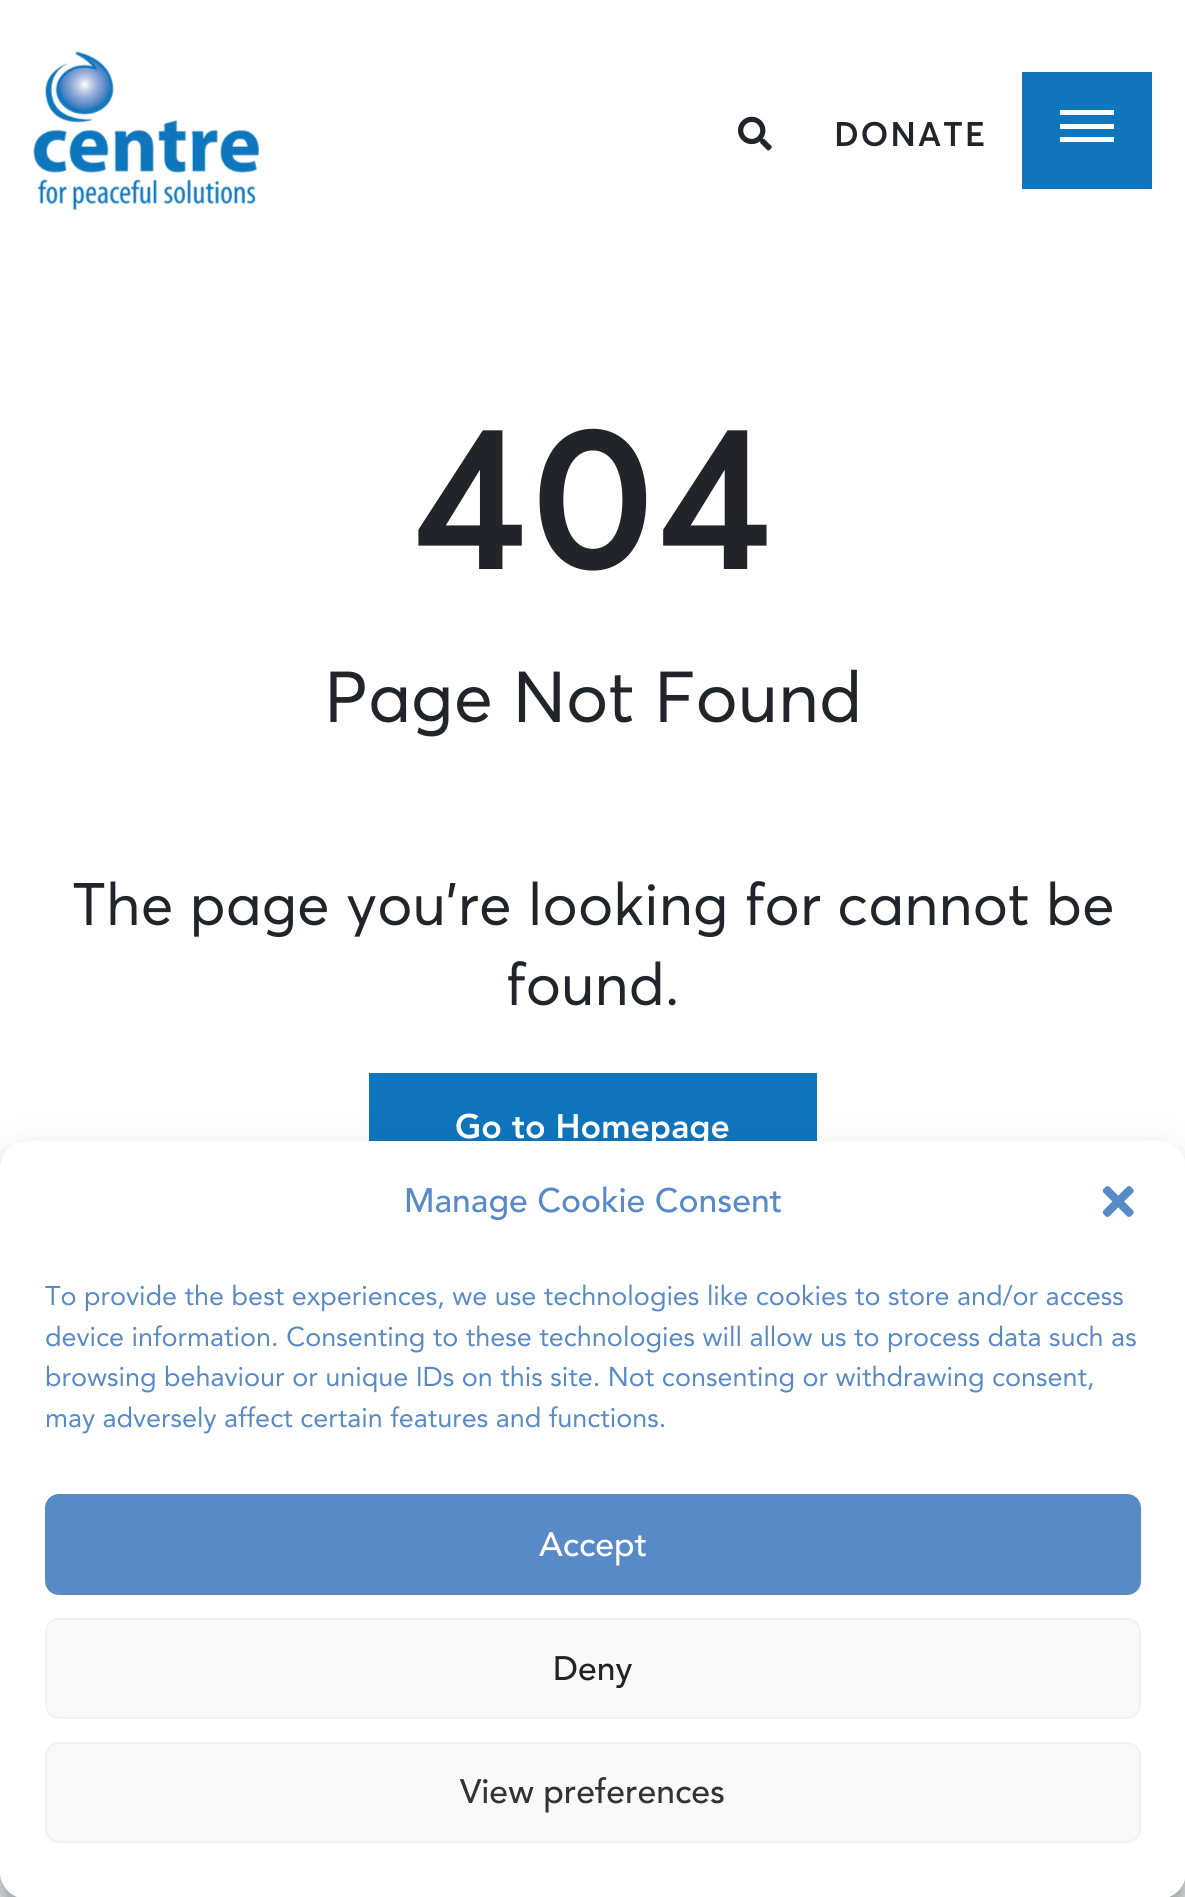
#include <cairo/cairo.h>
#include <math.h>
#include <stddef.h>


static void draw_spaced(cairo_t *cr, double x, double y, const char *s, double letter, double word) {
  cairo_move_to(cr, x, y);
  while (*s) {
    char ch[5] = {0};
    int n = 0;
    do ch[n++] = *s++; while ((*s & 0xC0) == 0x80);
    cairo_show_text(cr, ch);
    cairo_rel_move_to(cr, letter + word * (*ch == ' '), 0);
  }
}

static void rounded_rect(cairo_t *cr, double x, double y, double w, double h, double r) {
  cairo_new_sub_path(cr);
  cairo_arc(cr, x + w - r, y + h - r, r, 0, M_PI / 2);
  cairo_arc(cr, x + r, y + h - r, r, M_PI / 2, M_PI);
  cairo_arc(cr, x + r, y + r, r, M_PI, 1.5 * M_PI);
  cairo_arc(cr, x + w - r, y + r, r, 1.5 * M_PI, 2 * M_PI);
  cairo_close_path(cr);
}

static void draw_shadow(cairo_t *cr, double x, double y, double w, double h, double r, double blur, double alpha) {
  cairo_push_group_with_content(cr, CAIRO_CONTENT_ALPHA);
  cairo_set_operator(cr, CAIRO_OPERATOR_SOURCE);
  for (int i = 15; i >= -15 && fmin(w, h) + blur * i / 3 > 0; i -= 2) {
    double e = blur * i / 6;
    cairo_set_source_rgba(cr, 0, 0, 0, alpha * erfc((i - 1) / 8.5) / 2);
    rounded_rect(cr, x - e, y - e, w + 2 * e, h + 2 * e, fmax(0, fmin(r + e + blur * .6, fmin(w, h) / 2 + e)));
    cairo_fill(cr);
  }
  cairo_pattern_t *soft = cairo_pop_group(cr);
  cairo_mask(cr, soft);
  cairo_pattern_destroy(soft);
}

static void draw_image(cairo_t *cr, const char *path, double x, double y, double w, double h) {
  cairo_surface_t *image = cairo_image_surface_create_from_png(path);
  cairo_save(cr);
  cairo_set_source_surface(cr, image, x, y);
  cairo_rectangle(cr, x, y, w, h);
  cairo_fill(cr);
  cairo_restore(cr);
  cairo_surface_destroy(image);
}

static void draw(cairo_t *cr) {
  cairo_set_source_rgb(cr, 1, 1, 1);
  cairo_paint(cr);
  draw_image(cr, "images/1.png", 33, 51, 226, 159);
  draw_image(cr, "images/2.png", 738, 116, 34, 35);
  cairo_set_source_rgb(cr, 15 / 255.0, 117 / 255.0, 188 / 255.0);
  cairo_rectangle(cr, 1022, 72, 130, 117);
  cairo_fill(cr);
  cairo_set_source_rgb(cr, 1, 1, 1);
  cairo_rectangle(cr, 1060, 110, 54, 5);
  cairo_fill(cr);
  cairo_rectangle(cr, 1060, 124, 54, 5);
  cairo_fill(cr);
  cairo_rectangle(cr, 1060, 137, 54, 5);
  cairo_fill(cr);
  cairo_set_source_rgb(cr, 15 / 255.0, 117 / 255.0, 188 / 255.0);
  cairo_rectangle(cr, 369, 1073, 448, 68);
  cairo_fill(cr);
  cairo_set_source_rgb(cr, 240 / 255.0, 243 / 255.0, 245 / 255.0);
  cairo_rectangle(cr, 0, 1872, 1185, 25);
  cairo_fill(cr);
  cairo_set_source_rgb(cr, 0, 0, 0);
  draw_shadow(cr, 0, 1154, 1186, 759, 27, 7, 0.23);
  draw_shadow(cr, 0, 1163, 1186, 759, 27, 22.5, 0.19);
  cairo_set_source_rgb(cr, 1, 1, 1);
  rounded_rect(cr, 0, 1141, 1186, 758, 27);
  cairo_fill(cr);
  draw_image(cr, "images/3.png", 1102, 1186, 32, 31);
  cairo_set_source_rgb(cr, 88 / 255.0, 138 / 255.0, 200 / 255.0);
  rounded_rect(cr, 46, 1495, 1094, 99, 13);
  cairo_fill_preserve(cr);
  cairo_stroke(cr);
  cairo_set_source_rgb(cr, 249 / 255.0, 249 / 255.0, 249 / 255.0);
  rounded_rect(cr, 46, 1619, 1094, 99, 13);
  cairo_fill_preserve(cr);
  cairo_set_source_rgb(cr, 242 / 255.0, 242 / 255.0, 242 / 255.0);
  cairo_stroke(cr);
  cairo_set_source_rgb(cr, 249 / 255.0, 249 / 255.0, 249 / 255.0);
  rounded_rect(cr, 46, 1743, 1094, 99, 13);
  cairo_fill_preserve(cr);
  cairo_set_source_rgb(cr, 242 / 255.0, 242 / 255.0, 242 / 255.0);
  cairo_stroke(cr);
  cairo_select_font_face(cr, "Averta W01 SemiBold", CAIRO_FONT_SLANT_NORMAL, CAIRO_FONT_WEIGHT_NORMAL);
  cairo_set_font_size(cr, 33.75);
  cairo_set_source_rgb(cr, 33 / 255.0, 37 / 255.0, 41 / 255.0);
  draw_spaced(cr, 834, 146, "DONATE", 1.75, 0);
  cairo_set_font_size(cr, 202);
  cairo_move_to(cr, 412, 569);
  cairo_show_text(cr, "404");
  cairo_select_font_face(cr, "Averta W01", CAIRO_FONT_SLANT_NORMAL, CAIRO_FONT_WEIGHT_NORMAL);
  cairo_set_font_size(cr, 71);
  cairo_move_to(cr, 324, 722);
  cairo_show_text(cr, "Page Not Found");
  cairo_set_font_size(cr, 59.1);
  cairo_move_to(cr, 72, 925);
  cairo_show_text(cr, "The page you're looking for cannot be");
  cairo_move_to(cr, 506, 1005);
  cairo_show_text(cr, "found.");
  cairo_select_font_face(cr, "Avenir Black", CAIRO_FONT_SLANT_NORMAL, CAIRO_FONT_WEIGHT_NORMAL);
  cairo_set_font_size(cr, 33.75);
  cairo_set_source_rgb(cr, 1, 1, 1);
  cairo_move_to(cr, 455, 1138);
  cairo_show_text(cr, "Go to Homepage");
  cairo_select_font_face(cr, "Avenir Medium", CAIRO_FONT_SLANT_NORMAL, CAIRO_FONT_WEIGHT_NORMAL);
  cairo_set_source_rgb(cr, 88 / 255.0, 138 / 255.0, 200 / 255.0);
  cairo_move_to(cr, 404, 1212);
  cairo_show_text(cr, "Manage Cookie Consent");
  cairo_select_font_face(cr, "Avenir", CAIRO_FONT_SLANT_NORMAL, CAIRO_FONT_WEIGHT_NORMAL);
  cairo_set_font_size(cr, 27);
  cairo_move_to(cr, 45, 1305);
  cairo_show_text(cr, "To provide the best experiences, we use technologies like cookies to store and/or access");
  cairo_move_to(cr, 45, 1346);
  cairo_show_text(cr, "device information. Consenting to these technologies will allow us to process data such as");
  cairo_move_to(cr, 45, 1386);
  cairo_show_text(cr, "browsing behaviour or unique IDs on this site. Not consenting or withdrawing consent,");
  cairo_move_to(cr, 45, 1427);
  cairo_show_text(cr, "may adversely affect certain features and functions.");
  cairo_select_font_face(cr, "Avenir Medium", CAIRO_FONT_SLANT_NORMAL, CAIRO_FONT_WEIGHT_NORMAL);
  cairo_set_font_size(cr, 33.75);
  cairo_set_source_rgb(cr, 1, 1, 1);
  cairo_move_to(cr, 539, 1556);
  cairo_show_text(cr, "Accept");
  cairo_set_source_rgb(cr, 34 / 255.0, 34 / 255.0, 34 / 255.0);
  cairo_move_to(cr, 553, 1680);
  cairo_show_text(cr, "Deny");
  cairo_set_source_rgb(cr, 51 / 255.0, 51 / 255.0, 51 / 255.0);
  cairo_move_to(cr, 460, 1803);
  cairo_show_text(cr, "View preferences");
}

int main(void) {
  cairo_surface_t *surface = cairo_image_surface_create(CAIRO_FORMAT_RGB24, 1185, 1897);
  cairo_t *cr = cairo_create(surface);
  cairo_font_options_t *options = cairo_font_options_create();
  cairo_font_options_set_hint_metrics(options, CAIRO_HINT_METRICS_OFF);
  cairo_font_options_set_hint_style(options, CAIRO_HINT_STYLE_NONE);
  cairo_set_font_options(cr, options);
  cairo_set_miter_limit(cr, 4);
  draw(cr);
  cairo_surface_write_to_png(surface, "out.png");
  cairo_font_options_destroy(options);
  cairo_destroy(cr);
  cairo_surface_destroy(surface);
  return 0;
}
